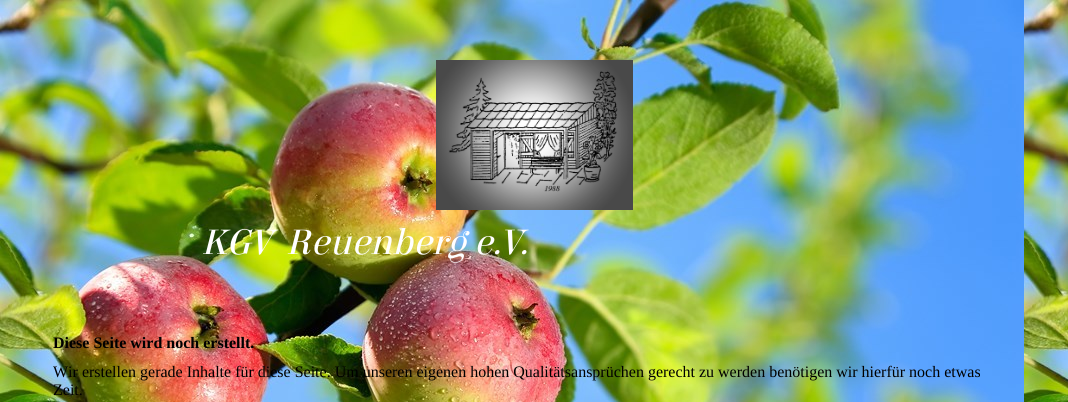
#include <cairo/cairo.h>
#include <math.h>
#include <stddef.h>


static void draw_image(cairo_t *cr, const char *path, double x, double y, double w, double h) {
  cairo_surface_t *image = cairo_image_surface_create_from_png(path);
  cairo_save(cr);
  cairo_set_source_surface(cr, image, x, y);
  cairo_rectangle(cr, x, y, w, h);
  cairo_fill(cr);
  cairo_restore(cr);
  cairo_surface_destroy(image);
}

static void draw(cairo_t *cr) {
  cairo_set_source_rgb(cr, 1, 1, 1);
  cairo_paint(cr);
  draw_image(cr, "images/1.png", 0, 0, 1068, 402);
  draw_image(cr, "images/2.png", 436, 60, 197, 150);
  cairo_select_font_face(cr, "Elsie", CAIRO_FONT_SLANT_ITALIC, CAIRO_FONT_WEIGHT_NORMAL);
  cairo_set_font_size(cr, 37.4);
  cairo_set_source_rgb(cr, 1, 1, 1);
  cairo_move_to(cr, 201, 254);
  cairo_show_text(cr, "KGV  Reuenberg e.V.");
  cairo_select_font_face(cr, "Liberation Serif", CAIRO_FONT_SLANT_NORMAL, CAIRO_FONT_WEIGHT_BOLD);
  cairo_set_font_size(cr, 16);
  cairo_set_source_rgb(cr, 0, 0, 0);
  cairo_move_to(cr, 53, 348);
  cairo_show_text(cr, "Diese Seite wird noch erstellt.");
  cairo_select_font_face(cr, "Liberation Serif", CAIRO_FONT_SLANT_NORMAL, CAIRO_FONT_WEIGHT_NORMAL);
  cairo_move_to(cr, 53, 377);
  cairo_show_text(cr, "Wir erstellen gerade Inhalte für diese Seite. Um unseren eigenen hohen Qualitätsansprüchen gerecht zu werden benötigen wir hierfür noch etwas");
  cairo_move_to(cr, 53, 395);
  cairo_show_text(cr, "Zeit.");
}

int main(void) {
  cairo_surface_t *surface = cairo_image_surface_create(CAIRO_FORMAT_RGB24, 1068, 402);
  cairo_t *cr = cairo_create(surface);
  cairo_font_options_t *options = cairo_font_options_create();
  cairo_font_options_set_hint_metrics(options, CAIRO_HINT_METRICS_OFF);
  cairo_font_options_set_hint_style(options, CAIRO_HINT_STYLE_NONE);
  cairo_set_font_options(cr, options);
  cairo_set_miter_limit(cr, 4);
  draw(cr);
  cairo_surface_write_to_png(surface, "out.png");
  cairo_font_options_destroy(options);
  cairo_destroy(cr);
  cairo_surface_destroy(surface);
  return 0;
}
